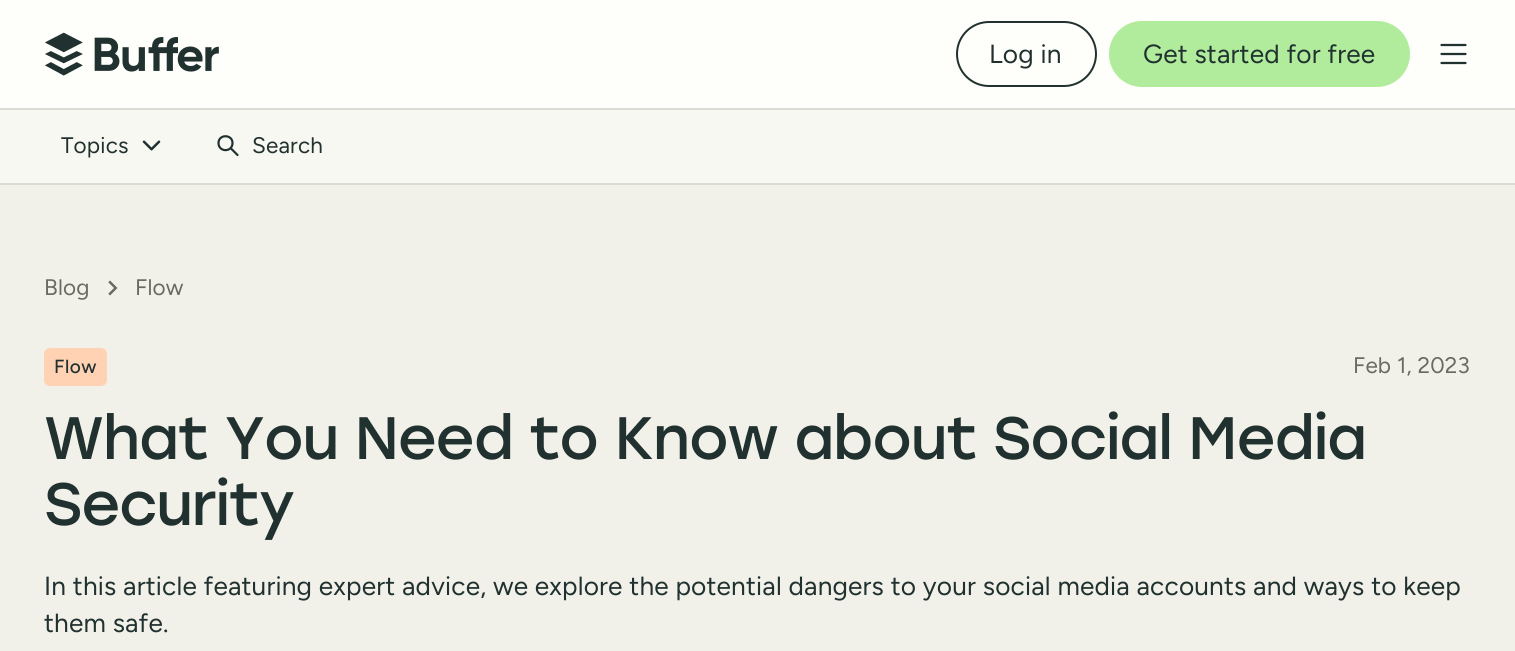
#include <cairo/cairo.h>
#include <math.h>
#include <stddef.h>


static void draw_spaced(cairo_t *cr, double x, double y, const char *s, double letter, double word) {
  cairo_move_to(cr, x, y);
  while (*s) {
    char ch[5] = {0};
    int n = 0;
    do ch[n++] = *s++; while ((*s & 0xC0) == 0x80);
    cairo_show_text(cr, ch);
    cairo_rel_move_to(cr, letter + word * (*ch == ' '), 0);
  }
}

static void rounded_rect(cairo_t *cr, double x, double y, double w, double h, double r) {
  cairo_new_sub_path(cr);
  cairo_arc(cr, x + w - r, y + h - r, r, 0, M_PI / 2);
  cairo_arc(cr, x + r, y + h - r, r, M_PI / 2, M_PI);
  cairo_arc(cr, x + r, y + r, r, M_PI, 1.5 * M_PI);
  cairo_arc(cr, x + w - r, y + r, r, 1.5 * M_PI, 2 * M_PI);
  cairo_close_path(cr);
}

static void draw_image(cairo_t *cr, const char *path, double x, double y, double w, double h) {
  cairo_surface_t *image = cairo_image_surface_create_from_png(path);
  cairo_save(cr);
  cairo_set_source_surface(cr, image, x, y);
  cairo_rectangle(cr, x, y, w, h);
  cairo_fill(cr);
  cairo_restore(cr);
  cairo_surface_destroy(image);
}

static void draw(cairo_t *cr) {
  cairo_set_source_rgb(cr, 254 / 255.0, 254 / 255.0, 251 / 255.0);
  cairo_paint(cr);
  draw_image(cr, "images/1.png", 45, 32, 174, 44);
  rounded_rect(cr, 957, 22, 139, 64, 32);
  cairo_set_source_rgb(cr, 33 / 255.0, 49 / 255.0, 48 / 255.0);
  cairo_stroke(cr);
  cairo_set_source_rgb(cr, 176 / 255.0, 236 / 255.0, 156 / 255.0);
  rounded_rect(cr, 1110, 22, 299, 64, 32);
  cairo_fill_preserve(cr);
  cairo_stroke(cr);
  cairo_new_path(cr);
  cairo_move_to(cr, 1441.5, 54);
  cairo_line_to(cr, 1465.5, 54);
  cairo_move_to(cr, 1441.5, 45);
  cairo_line_to(cr, 1465.5, 45);
  cairo_move_to(cr, 1441.5, 63);
  cairo_line_to(cr, 1465.5, 63);
  cairo_set_source_rgb(cr, 33 / 255.0, 49 / 255.0, 48 / 255.0);
  cairo_set_line_width(cr, 2.2);
  cairo_set_line_cap(cr, CAIRO_LINE_CAP_ROUND);
  cairo_set_line_join(cr, CAIRO_LINE_JOIN_ROUND);
  cairo_stroke(cr);
  cairo_set_source_rgb(cr, 248 / 255.0, 248 / 255.0, 242 / 255.0);
  cairo_rectangle(cr, 0, 110, 1515, 73);
  cairo_fill(cr);
  cairo_set_source_rgb(cr, 219 / 255.0, 219 / 255.0, 209 / 255.0);
  cairo_rectangle(cr, 0, 108, 1515, 2);
  cairo_fill(cr);
  cairo_rectangle(cr, 0, 183, 1515, 2);
  cairo_fill(cr);
  draw_image(cr, "images/2.png", 142, 140, 19, 11);
  cairo_new_path(cr);
  cairo_move_to(cr, 237.5, 155);
  cairo_line_to(cr, 231.5, 149);
  cairo_move_to(cr, 232.5, 143);
  cairo_curve_to(cr, 232.5, 152.5, 218.5, 152.5, 218.5, 143);
  cairo_curve_to(cr, 218.5, 134, 232.5, 134, 232.5, 143);
  cairo_close_path(cr);
  cairo_set_source_rgb(cr, 33 / 255.0, 49 / 255.0, 48 / 255.0);
  cairo_stroke(cr);
  cairo_set_source_rgb(cr, 241 / 255.0, 241 / 255.0, 233 / 255.0);
  cairo_rectangle(cr, 0, 185, 1515, 466);
  cairo_fill(cr);
  draw_image(cr, "images/3.png", 108, 280, 10, 16);
  cairo_set_source_rgb(cr, 1, 210 / 255.0, 179 / 255.0);
  rounded_rect(cr, 44, 348, 63, 38, 6);
  cairo_fill(cr);
  cairo_select_font_face(cr, "Figtree", CAIRO_FONT_SLANT_NORMAL, CAIRO_FONT_WEIGHT_NORMAL);
  cairo_set_font_size(cr, 26.25);
  cairo_set_source_rgb(cr, 33 / 255.0, 49 / 255.0, 48 / 255.0);
  draw_spaced(cr, 989, 63, "Log in", 0.18, 0);
  draw_spaced(cr, 1143, 63, "Get started for free", 0.18, 0);
  cairo_set_font_size(cr, 22.5);
  draw_spaced(cr, 61, 153, "Topics", 0.18, 0);
  draw_spaced(cr, 252, 153, "Search", 0.18, 0);
  cairo_set_source_rgb(cr, 106 / 255.0, 106 / 255.0, 98 / 255.0);
  draw_spaced(cr, 44, 295, "Blog", 0.18, 0);
  draw_spaced(cr, 135, 295, "Flow", 0.18, 0);
  cairo_select_font_face(cr, "Figtree Medium", CAIRO_FONT_SLANT_NORMAL, CAIRO_FONT_WEIGHT_NORMAL);
  cairo_set_font_size(cr, 19);
  cairo_set_source_rgb(cr, 33 / 255.0, 49 / 255.0, 48 / 255.0);
  draw_spaced(cr, 54, 373, "Flow", 0.5, 0);
  cairo_select_font_face(cr, "Figtree", CAIRO_FONT_SLANT_NORMAL, CAIRO_FONT_WEIGHT_NORMAL);
  cairo_set_font_size(cr, 22.5);
  cairo_set_source_rgb(cr, 106 / 255.0, 106 / 255.0, 98 / 255.0);
  draw_spaced(cr, 1353, 373, "Feb 1, 2023", 0.18, 0);
  cairo_select_font_face(cr, "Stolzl", CAIRO_FONT_SLANT_NORMAL, CAIRO_FONT_WEIGHT_NORMAL);
  cairo_set_font_size(cr, 59.7);
  cairo_set_source_rgb(cr, 33 / 255.0, 49 / 255.0, 48 / 255.0);
  draw_spaced(cr, 44, 459, "What You Need to Know about Social Media", -1.2, 0);
  draw_spaced(cr, 44, 525, "Security", -1.2, 0);
  cairo_select_font_face(cr, "Figtree", CAIRO_FONT_SLANT_NORMAL, CAIRO_FONT_WEIGHT_NORMAL);
  cairo_set_font_size(cr, 26.25);
  draw_spaced(cr, 44, 595, "In this article featuring expert advice, we explore the potential dangers to your social media accounts and ways to keep", 0.18, 0);
  draw_spaced(cr, 44, 632, "them safe.", 0.18, 0);
}

int main(void) {
  cairo_surface_t *surface = cairo_image_surface_create(CAIRO_FORMAT_RGB24, 1515, 651);
  cairo_t *cr = cairo_create(surface);
  cairo_font_options_t *options = cairo_font_options_create();
  cairo_font_options_set_hint_metrics(options, CAIRO_HINT_METRICS_OFF);
  cairo_font_options_set_hint_style(options, CAIRO_HINT_STYLE_NONE);
  cairo_set_font_options(cr, options);
  cairo_set_miter_limit(cr, 4);
  draw(cr);
  cairo_surface_write_to_png(surface, "out.png");
  cairo_font_options_destroy(options);
  cairo_destroy(cr);
  cairo_surface_destroy(surface);
  return 0;
}
